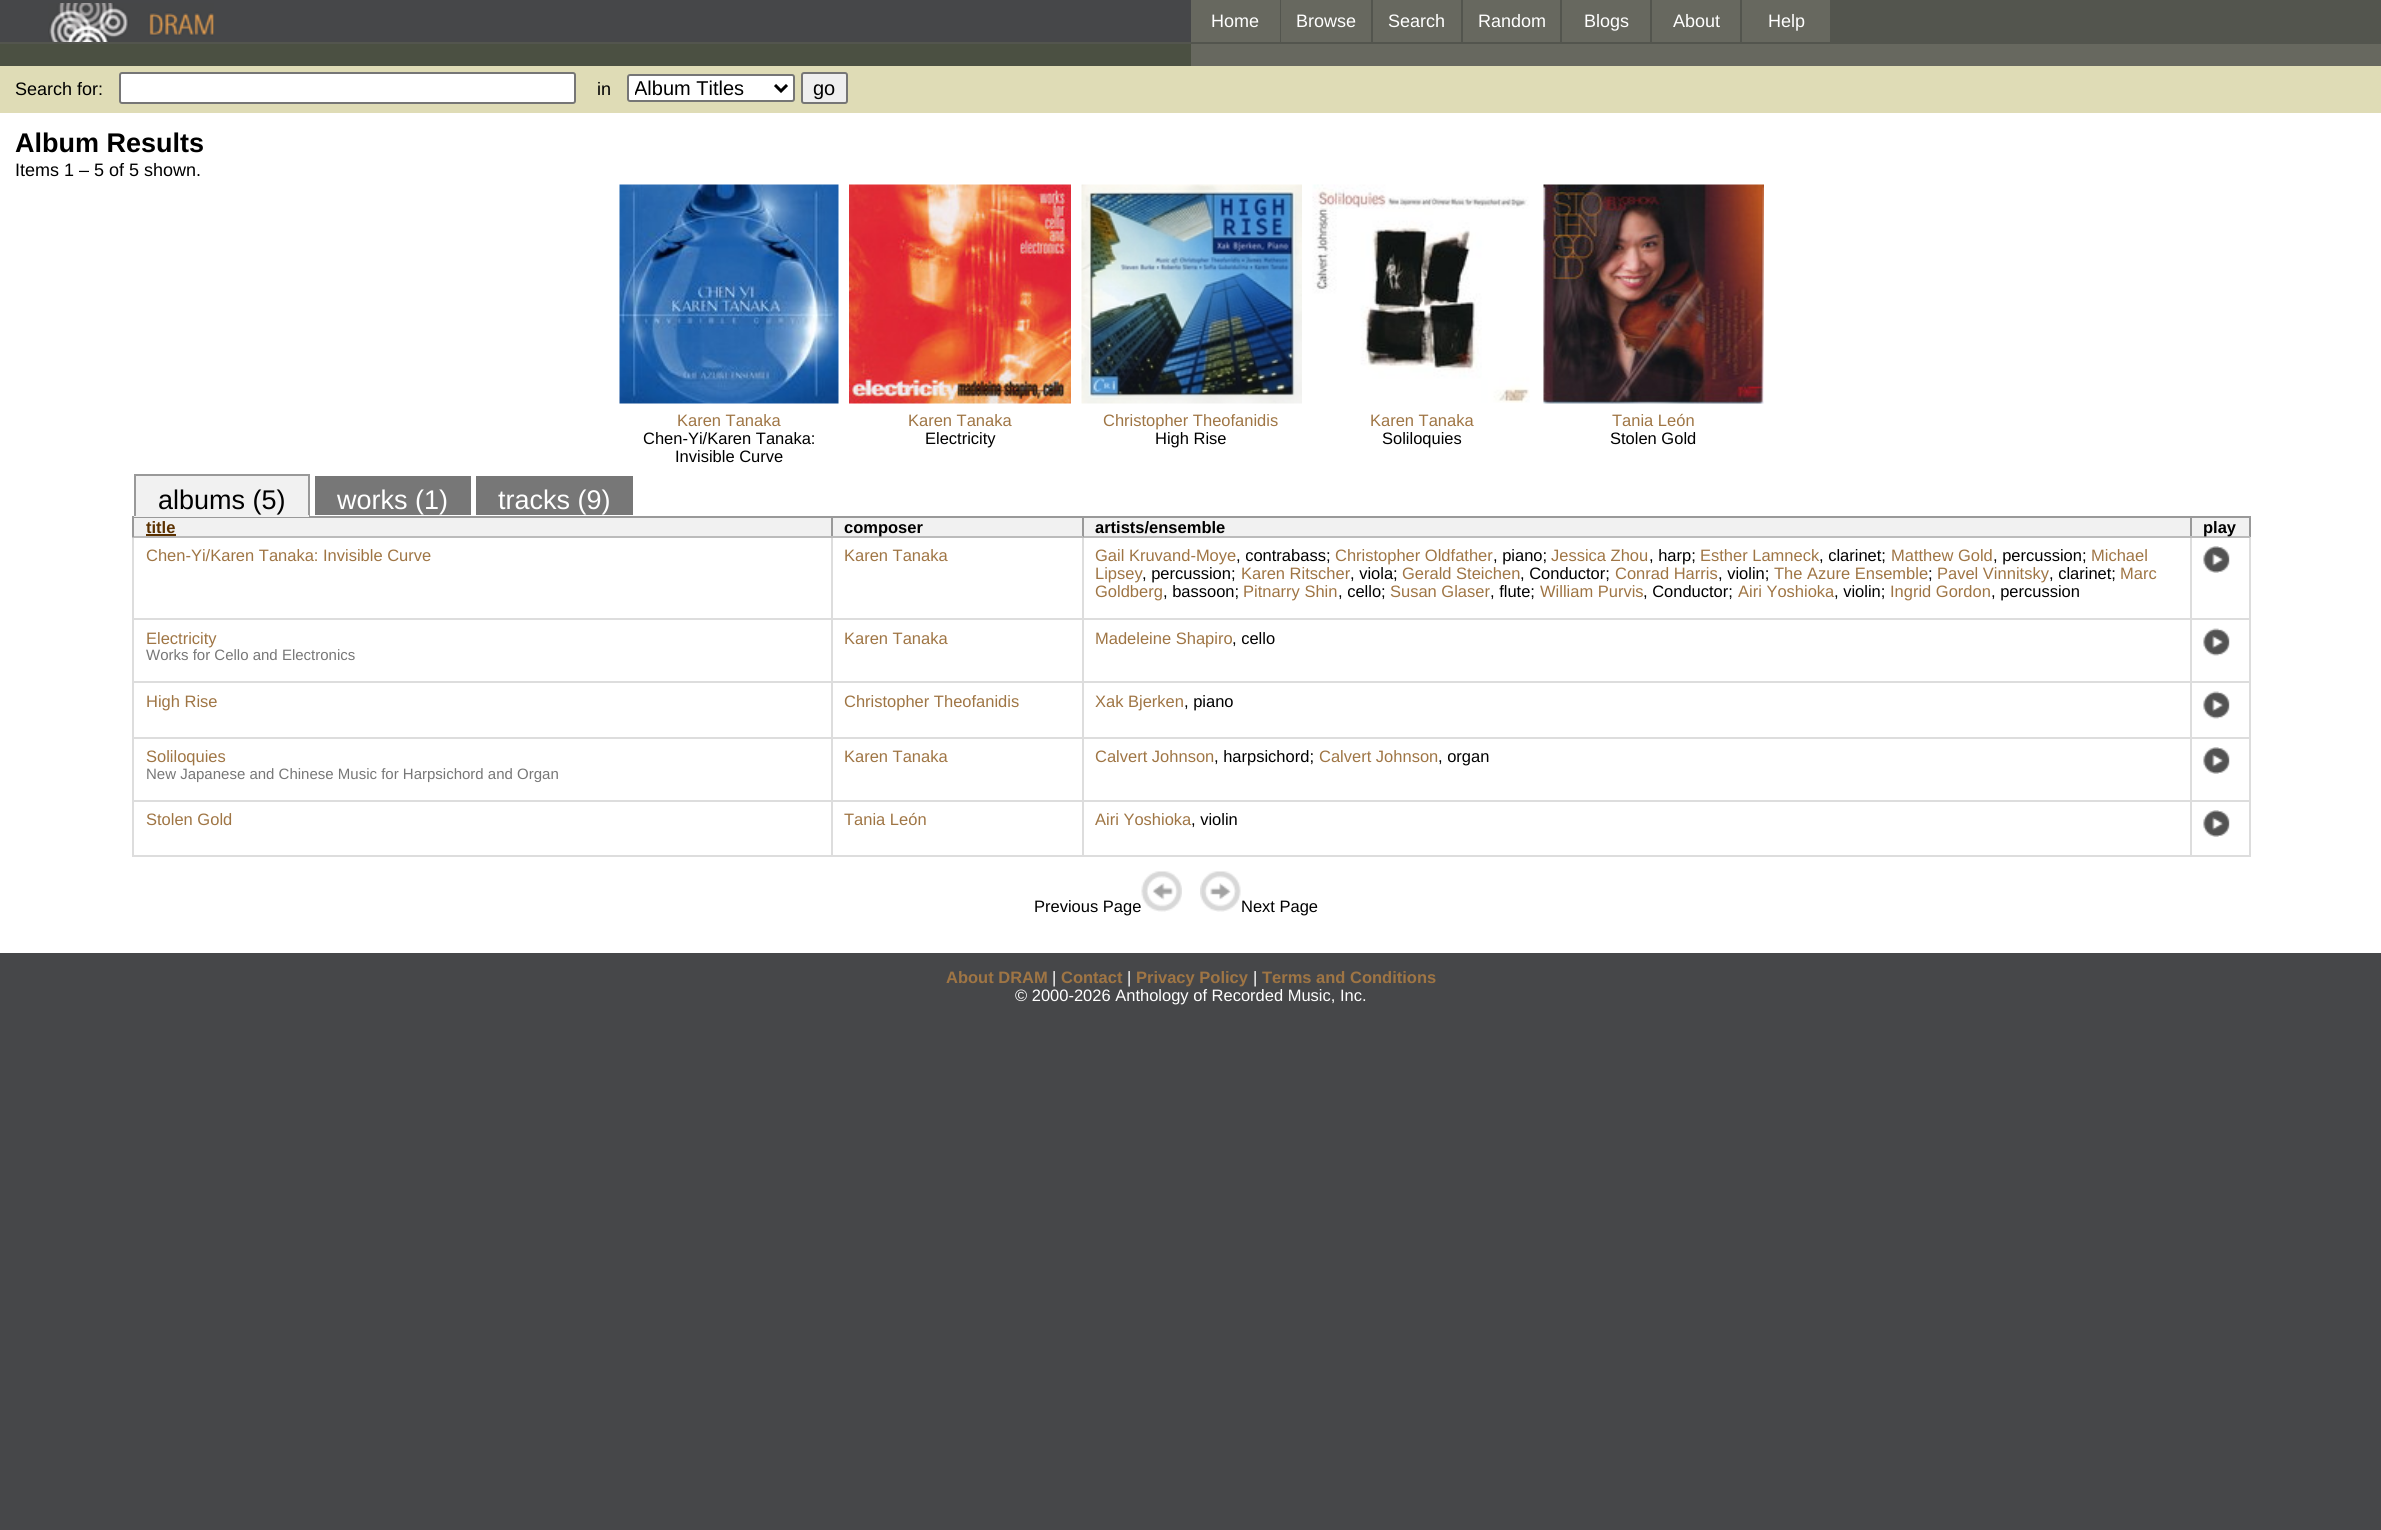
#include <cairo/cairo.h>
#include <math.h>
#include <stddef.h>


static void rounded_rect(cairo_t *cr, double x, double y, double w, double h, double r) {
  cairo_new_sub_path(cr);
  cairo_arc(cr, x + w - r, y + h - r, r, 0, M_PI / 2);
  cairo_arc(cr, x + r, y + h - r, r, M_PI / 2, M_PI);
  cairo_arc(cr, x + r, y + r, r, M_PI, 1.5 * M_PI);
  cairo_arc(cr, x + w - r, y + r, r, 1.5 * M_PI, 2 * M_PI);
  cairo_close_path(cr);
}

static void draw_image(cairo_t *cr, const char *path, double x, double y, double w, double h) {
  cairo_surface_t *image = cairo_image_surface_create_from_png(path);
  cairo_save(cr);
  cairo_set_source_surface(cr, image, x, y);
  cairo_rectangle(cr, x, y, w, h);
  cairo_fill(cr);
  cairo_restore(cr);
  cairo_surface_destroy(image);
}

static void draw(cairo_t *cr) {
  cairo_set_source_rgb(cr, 70 / 255.0, 71 / 255.0, 73 / 255.0);
  cairo_paint(cr);
  draw_image(cr, "images/1.png", 48, 3, 166, 39);
  cairo_set_source_rgb(cr, 83 / 255.0, 85 / 255.0, 78 / 255.0);
  cairo_rectangle(cr, 1280, 0, 1101, 42);
  cairo_fill(cr);
  cairo_set_source_rgb(cr, 103 / 255.0, 104 / 255.0, 95 / 255.0);
  cairo_rectangle(cr, 1191, 0, 89, 42);
  cairo_fill(cr);
  cairo_rectangle(cr, 1281, 0, 90, 42);
  cairo_fill(cr);
  cairo_rectangle(cr, 1373, 0, 88, 42);
  cairo_fill(cr);
  cairo_rectangle(cr, 1463, 0, 97, 42);
  cairo_fill(cr);
  cairo_rectangle(cr, 1562, 0, 88, 42);
  cairo_fill(cr);
  cairo_rectangle(cr, 1652, 0, 88, 42);
  cairo_fill(cr);
  cairo_rectangle(cr, 1742, 0, 88, 42);
  cairo_fill(cr);
  cairo_rectangle(cr, 1191, 44, 1190, 22);
  cairo_fill(cr);
  cairo_set_source_rgb(cr, 83 / 255.0, 85 / 255.0, 78 / 255.0);
  cairo_rectangle(cr, 0, 42, 2381, 2);
  cairo_fill(cr);
  cairo_set_source_rgb(cr, 75 / 255.0, 80 / 255.0, 66 / 255.0);
  cairo_rectangle(cr, 0, 44, 1191, 22);
  cairo_fill(cr);
  cairo_set_source_rgb(cr, 223 / 255.0, 220 / 255.0, 182 / 255.0);
  cairo_rectangle(cr, 0, 66, 2381, 47);
  cairo_fill(cr);
  cairo_set_source_rgb(cr, 1, 1, 1);
  rounded_rect(cr, 120, 73, 455, 30, 2);
  cairo_fill_preserve(cr);
  cairo_set_source_rgb(cr, 118 / 255.0, 118 / 255.0, 118 / 255.0);
  cairo_stroke(cr);
  cairo_set_source_rgb(cr, 1, 1, 1);
  rounded_rect(cr, 628, 75, 166, 26, 2);
  cairo_fill_preserve(cr);
  cairo_set_source_rgb(cr, 118 / 255.0, 118 / 255.0, 118 / 255.0);
  cairo_stroke(cr);
  cairo_new_path(cr);
  cairo_move_to(cr, 775, 85);
  cairo_line_to(cr, 781, 91);
  cairo_line_to(cr, 787, 85);
  cairo_set_source_rgb(cr, 0, 0, 0);
  cairo_set_line_width(cr, 3);
  cairo_stroke(cr);
  cairo_set_source_rgb(cr, 239 / 255.0, 239 / 255.0, 239 / 255.0);
  rounded_rect(cr, 802, 73, 45, 30, 2);
  cairo_fill_preserve(cr);
  cairo_set_source_rgb(cr, 118 / 255.0, 118 / 255.0, 118 / 255.0);
  cairo_set_line_width(cr, 2);
  cairo_stroke(cr);
  cairo_set_source_rgb(cr, 1, 1, 1);
  cairo_rectangle(cr, 0, 113, 2381, 840);
  cairo_fill(cr);
  draw_image(cr, "images/2.png", 619, 184, 220, 220);
  draw_image(cr, "images/3.png", 849, 184, 222, 220);
  draw_image(cr, "images/4.png", 1081, 184, 221, 220);
  draw_image(cr, "images/5.png", 1312, 184, 218, 219);
  draw_image(cr, "images/6.png", 1543, 184, 221, 220);
  cairo_set_source_rgb(cr, 241 / 255.0, 241 / 255.0, 241 / 255.0);
  cairo_rectangle(cr, 136, 476, 172, 39);
  cairo_fill(cr);
  cairo_set_source_rgb(cr, 153 / 255.0, 153 / 255.0, 153 / 255.0);
  cairo_rectangle(cr, 134, 474, 175, 2);
  cairo_fill(cr);
  cairo_rectangle(cr, 308, 474, 2, 42);
  cairo_fill(cr);
  cairo_rectangle(cr, 2190, 516, 60, 2);
  cairo_fill(cr);
  cairo_set_source_rgb(cr, 221 / 255.0, 221 / 255.0, 221 / 255.0);
  cairo_rectangle(cr, 2249, 536, 2, 321);
  cairo_fill(cr);
  cairo_set_source_rgb(cr, 153 / 255.0, 153 / 255.0, 153 / 255.0);
  cairo_rectangle(cr, 2249, 516, 2, 21);
  cairo_fill(cr);
  cairo_set_source_rgb(cr, 221 / 255.0, 221 / 255.0, 221 / 255.0);
  cairo_rectangle(cr, 2190, 855, 60, 2);
  cairo_fill(cr);
  cairo_rectangle(cr, 2190, 800, 2, 57);
  cairo_fill(cr);
  cairo_rectangle(cr, 2190, 800, 60, 2);
  cairo_fill(cr);
  cairo_rectangle(cr, 2190, 737, 2, 64);
  cairo_fill(cr);
  cairo_rectangle(cr, 2190, 737, 60, 2);
  cairo_fill(cr);
  cairo_rectangle(cr, 2190, 681, 2, 57);
  cairo_fill(cr);
  cairo_rectangle(cr, 2190, 681, 60, 2);
  cairo_fill(cr);
  cairo_rectangle(cr, 2190, 618, 2, 65);
  cairo_fill(cr);
  cairo_rectangle(cr, 2190, 618, 60, 2);
  cairo_fill(cr);
  cairo_rectangle(cr, 2190, 536, 2, 84);
  cairo_fill(cr);
  cairo_set_source_rgb(cr, 187 / 255.0, 187 / 255.0, 187 / 255.0);
  cairo_rectangle(cr, 2190, 536, 60, 2);
  cairo_fill(cr);
  cairo_set_source_rgb(cr, 153 / 255.0, 153 / 255.0, 153 / 255.0);
  cairo_rectangle(cr, 2190, 516, 2, 21);
  cairo_fill(cr);
  cairo_rectangle(cr, 1082, 516, 1110, 2);
  cairo_fill(cr);
  cairo_set_source_rgb(cr, 221 / 255.0, 221 / 255.0, 221 / 255.0);
  cairo_rectangle(cr, 1082, 855, 1110, 2);
  cairo_fill(cr);
  cairo_rectangle(cr, 1082, 800, 2, 57);
  cairo_fill(cr);
  cairo_rectangle(cr, 1082, 800, 1110, 2);
  cairo_fill(cr);
  cairo_rectangle(cr, 1082, 737, 2, 64);
  cairo_fill(cr);
  cairo_rectangle(cr, 1082, 737, 1110, 2);
  cairo_fill(cr);
  cairo_rectangle(cr, 1082, 681, 2, 57);
  cairo_fill(cr);
  cairo_rectangle(cr, 1082, 681, 1110, 2);
  cairo_fill(cr);
  cairo_rectangle(cr, 1082, 618, 2, 65);
  cairo_fill(cr);
  cairo_rectangle(cr, 1082, 618, 1110, 2);
  cairo_fill(cr);
  cairo_rectangle(cr, 1082, 536, 2, 84);
  cairo_fill(cr);
  cairo_set_source_rgb(cr, 187 / 255.0, 187 / 255.0, 187 / 255.0);
  cairo_rectangle(cr, 1082, 536, 1110, 2);
  cairo_fill(cr);
  cairo_set_source_rgb(cr, 153 / 255.0, 153 / 255.0, 153 / 255.0);
  cairo_rectangle(cr, 1082, 516, 2, 21);
  cairo_fill(cr);
  cairo_rectangle(cr, 831, 516, 252, 2);
  cairo_fill(cr);
  cairo_set_source_rgb(cr, 221 / 255.0, 221 / 255.0, 221 / 255.0);
  cairo_rectangle(cr, 831, 855, 252, 2);
  cairo_fill(cr);
  cairo_rectangle(cr, 831, 800, 2, 57);
  cairo_fill(cr);
  cairo_rectangle(cr, 831, 800, 252, 2);
  cairo_fill(cr);
  cairo_rectangle(cr, 831, 737, 2, 64);
  cairo_fill(cr);
  cairo_rectangle(cr, 831, 737, 252, 2);
  cairo_fill(cr);
  cairo_rectangle(cr, 831, 681, 2, 57);
  cairo_fill(cr);
  cairo_rectangle(cr, 831, 681, 252, 2);
  cairo_fill(cr);
  cairo_rectangle(cr, 831, 618, 2, 65);
  cairo_fill(cr);
  cairo_rectangle(cr, 831, 618, 252, 2);
  cairo_fill(cr);
  cairo_rectangle(cr, 831, 536, 2, 84);
  cairo_fill(cr);
  cairo_set_source_rgb(cr, 187 / 255.0, 187 / 255.0, 187 / 255.0);
  cairo_rectangle(cr, 831, 536, 252, 2);
  cairo_fill(cr);
  cairo_set_source_rgb(cr, 153 / 255.0, 153 / 255.0, 153 / 255.0);
  cairo_rectangle(cr, 831, 516, 2, 21);
  cairo_fill(cr);
  cairo_rectangle(cr, 132, 516, 701, 2);
  cairo_fill(cr);
  cairo_set_source_rgb(cr, 241 / 255.0, 241 / 255.0, 241 / 255.0);
  cairo_rectangle(cr, 134, 515, 175, 2);
  cairo_fill(cr);
  cairo_set_source_rgb(cr, 153 / 255.0, 153 / 255.0, 153 / 255.0);
  cairo_rectangle(cr, 134, 474, 2, 42);
  cairo_fill(cr);
  cairo_set_source_rgb(cr, 119 / 255.0, 119 / 255.0, 119 / 255.0);
  cairo_rectangle(cr, 315, 476, 156, 39);
  cairo_fill(cr);
  cairo_rectangle(cr, 476, 476, 157, 39);
  cairo_fill(cr);
  cairo_set_source_rgb(cr, 241 / 255.0, 241 / 255.0, 241 / 255.0);
  cairo_rectangle(cr, 134, 518, 697, 18);
  cairo_fill(cr);
  cairo_set_source_rgb(cr, 221 / 255.0, 221 / 255.0, 221 / 255.0);
  cairo_rectangle(cr, 132, 855, 701, 2);
  cairo_fill(cr);
  cairo_rectangle(cr, 132, 800, 2, 57);
  cairo_fill(cr);
  cairo_rectangle(cr, 132, 800, 701, 2);
  cairo_fill(cr);
  cairo_rectangle(cr, 132, 737, 2, 64);
  cairo_fill(cr);
  cairo_rectangle(cr, 132, 737, 701, 2);
  cairo_fill(cr);
  cairo_rectangle(cr, 132, 681, 2, 57);
  cairo_fill(cr);
  cairo_rectangle(cr, 132, 681, 701, 2);
  cairo_fill(cr);
  cairo_rectangle(cr, 132, 618, 2, 65);
  cairo_fill(cr);
  cairo_rectangle(cr, 132, 618, 701, 2);
  cairo_fill(cr);
  cairo_rectangle(cr, 132, 536, 2, 84);
  cairo_fill(cr);
  cairo_set_source_rgb(cr, 187 / 255.0, 187 / 255.0, 187 / 255.0);
  cairo_rectangle(cr, 132, 536, 701, 2);
  cairo_fill(cr);
  cairo_set_source_rgb(cr, 153 / 255.0, 153 / 255.0, 153 / 255.0);
  cairo_rectangle(cr, 132, 516, 2, 21);
  cairo_fill(cr);
  cairo_set_source_rgb(cr, 91 / 255.0, 49 / 255.0, 0);
  cairo_rectangle(cr, 146, 534, 30, 2);
  cairo_fill(cr);
  cairo_set_source_rgb(cr, 241 / 255.0, 241 / 255.0, 241 / 255.0);
  cairo_rectangle(cr, 833, 518, 249, 18);
  cairo_fill(cr);
  cairo_rectangle(cr, 1084, 518, 1106, 18);
  cairo_fill(cr);
  cairo_rectangle(cr, 2192, 518, 57, 18);
  cairo_fill(cr);
  draw_image(cr, "images/7.png", 2203, 546, 27, 27);
  draw_image(cr, "images/8.png", 2203, 628, 27, 28);
  draw_image(cr, "images/8.png", 2203, 691, 27, 28);
  draw_image(cr, "images/7.png", 2203, 747, 27, 27);
  draw_image(cr, "images/7.png", 2203, 810, 27, 27);
  draw_image(cr, "images/9.png", 1141, 871, 41, 41);
  draw_image(cr, "images/10.png", 1200, 871, 41, 41);
  cairo_select_font_face(cr, "Liberation Sans", CAIRO_FONT_SLANT_NORMAL, CAIRO_FONT_WEIGHT_NORMAL);
  cairo_set_font_size(cr, 18);
  cairo_set_source_rgb(cr, 1, 1, 1);
  cairo_move_to(cr, 1211, 27);
  cairo_show_text(cr, "Home");
  cairo_move_to(cr, 1296, 27);
  cairo_show_text(cr, "Browse");
  cairo_move_to(cr, 1388, 27);
  cairo_show_text(cr, "Search");
  cairo_move_to(cr, 1478, 27);
  cairo_show_text(cr, "Random");
  cairo_move_to(cr, 1584, 27);
  cairo_show_text(cr, "Blogs");
  cairo_move_to(cr, 1673, 27);
  cairo_show_text(cr, "About");
  cairo_move_to(cr, 1768, 27);
  cairo_show_text(cr, "Help");
  cairo_set_source_rgb(cr, 0, 0, 0);
  cairo_move_to(cr, 15, 95);
  cairo_show_text(cr, "Search for:");
  cairo_move_to(cr, 597, 95);
  cairo_show_text(cr, "in");
  cairo_save(cr);
  cairo_rectangle(cr, 635, 75, 135, 26);
  cairo_clip(cr);
  cairo_set_font_size(cr, 20);
  cairo_move_to(cr, 634, 95);
  cairo_show_text(cr, "Album Titles");
  cairo_restore(cr);
  cairo_set_font_size(cr, 20);
  cairo_move_to(cr, 813, 95);
  cairo_show_text(cr, "go");
  cairo_select_font_face(cr, "Liberation Sans", CAIRO_FONT_SLANT_NORMAL, CAIRO_FONT_WEIGHT_BOLD);
  cairo_set_font_size(cr, 27);
  cairo_move_to(cr, 15, 152);
  cairo_show_text(cr, "Album Results");
  cairo_select_font_face(cr, "Liberation Sans", CAIRO_FONT_SLANT_NORMAL, CAIRO_FONT_WEIGHT_NORMAL);
  cairo_set_font_size(cr, 18);
  cairo_move_to(cr, 15, 176);
  cairo_show_text(cr, "Items 1 – 5 of 5 shown.");
  cairo_set_font_size(cr, 16.5);
  cairo_set_source_rgb(cr, 159 / 255.0, 117 / 255.0, 68 / 255.0);
  cairo_move_to(cr, 677, 426);
  cairo_show_text(cr, "Karen Tanaka");
  cairo_set_source_rgb(cr, 0, 0, 0);
  cairo_move_to(cr, 643, 444);
  cairo_show_text(cr, "Chen-Yi/Karen Tanaka:");
  cairo_move_to(cr, 675, 462);
  cairo_show_text(cr, "Invisible Curve");
  cairo_set_source_rgb(cr, 159 / 255.0, 117 / 255.0, 68 / 255.0);
  cairo_move_to(cr, 908, 426);
  cairo_show_text(cr, "Karen Tanaka");
  cairo_set_source_rgb(cr, 0, 0, 0);
  cairo_move_to(cr, 925, 444);
  cairo_show_text(cr, "Electricity");
  cairo_set_source_rgb(cr, 159 / 255.0, 117 / 255.0, 68 / 255.0);
  cairo_move_to(cr, 1103, 426);
  cairo_show_text(cr, "Christopher Theofanidis");
  cairo_set_source_rgb(cr, 0, 0, 0);
  cairo_move_to(cr, 1155, 444);
  cairo_show_text(cr, "High Rise");
  cairo_set_source_rgb(cr, 159 / 255.0, 117 / 255.0, 68 / 255.0);
  cairo_move_to(cr, 1370, 426);
  cairo_show_text(cr, "Karen Tanaka");
  cairo_set_source_rgb(cr, 0, 0, 0);
  cairo_move_to(cr, 1382, 444);
  cairo_show_text(cr, "Soliloquies");
  cairo_set_source_rgb(cr, 159 / 255.0, 117 / 255.0, 68 / 255.0);
  cairo_move_to(cr, 1612, 426);
  cairo_show_text(cr, "Tania León");
  cairo_set_source_rgb(cr, 0, 0, 0);
  cairo_move_to(cr, 1610, 444);
  cairo_show_text(cr, "Stolen Gold");
  cairo_set_font_size(cr, 27);
  cairo_move_to(cr, 158, 509);
  cairo_show_text(cr, "albums (5)");
  cairo_set_source_rgb(cr, 1, 1, 1);
  cairo_move_to(cr, 337, 509);
  cairo_show_text(cr, "works (1)");
  cairo_move_to(cr, 498, 509);
  cairo_show_text(cr, "tracks (9)");
  cairo_select_font_face(cr, "Liberation Sans", CAIRO_FONT_SLANT_NORMAL, CAIRO_FONT_WEIGHT_BOLD);
  cairo_set_font_size(cr, 16.5);
  cairo_set_source_rgb(cr, 91 / 255.0, 49 / 255.0, 0);
  cairo_move_to(cr, 146, 533);
  cairo_show_text(cr, "title");
  cairo_set_source_rgb(cr, 0, 0, 0);
  cairo_move_to(cr, 844, 533);
  cairo_show_text(cr, "composer");
  cairo_move_to(cr, 1095, 533);
  cairo_show_text(cr, "artists/ensemble");
  cairo_move_to(cr, 2203, 533);
  cairo_show_text(cr, "play");
  cairo_select_font_face(cr, "Liberation Sans", CAIRO_FONT_SLANT_NORMAL, CAIRO_FONT_WEIGHT_NORMAL);
  cairo_set_source_rgb(cr, 159 / 255.0, 117 / 255.0, 68 / 255.0);
  cairo_move_to(cr, 146, 561);
  cairo_show_text(cr, "Chen-Yi/Karen Tanaka: Invisible Curve");
  cairo_move_to(cr, 844, 561);
  cairo_show_text(cr, "Karen Tanaka");
  cairo_move_to(cr, 1095, 561);
  cairo_show_text(cr, "Gail Kruvand-Moye");
  cairo_set_source_rgb(cr, 0, 0, 0);
  cairo_move_to(cr, 1236, 561);
  cairo_show_text(cr, ", contrabass;");
  cairo_set_source_rgb(cr, 159 / 255.0, 117 / 255.0, 68 / 255.0);
  cairo_move_to(cr, 1335, 561);
  cairo_show_text(cr, "Christopher Oldfather");
  cairo_set_source_rgb(cr, 0, 0, 0);
  cairo_move_to(cr, 1493, 561);
  cairo_show_text(cr, ", piano;");
  cairo_set_source_rgb(cr, 159 / 255.0, 117 / 255.0, 68 / 255.0);
  cairo_move_to(cr, 1551, 561);
  cairo_show_text(cr, "Jessica Zhou");
  cairo_set_source_rgb(cr, 0, 0, 0);
  cairo_move_to(cr, 1649, 561);
  cairo_show_text(cr, ", harp;");
  cairo_set_source_rgb(cr, 159 / 255.0, 117 / 255.0, 68 / 255.0);
  cairo_move_to(cr, 1700, 561);
  cairo_show_text(cr, "Esther Lamneck");
  cairo_set_source_rgb(cr, 0, 0, 0);
  cairo_move_to(cr, 1819, 561);
  cairo_show_text(cr, ", clarinet;");
  cairo_set_source_rgb(cr, 159 / 255.0, 117 / 255.0, 68 / 255.0);
  cairo_move_to(cr, 1891, 561);
  cairo_show_text(cr, "Matthew Gold");
  cairo_set_source_rgb(cr, 0, 0, 0);
  cairo_move_to(cr, 1993, 561);
  cairo_show_text(cr, ", percussion;");
  cairo_set_source_rgb(cr, 159 / 255.0, 117 / 255.0, 68 / 255.0);
  cairo_move_to(cr, 2091, 561);
  cairo_show_text(cr, "Michael");
  cairo_move_to(cr, 1095, 579);
  cairo_show_text(cr, "Lipsey");
  cairo_set_source_rgb(cr, 0, 0, 0);
  cairo_move_to(cr, 1142, 579);
  cairo_show_text(cr, ", percussion;");
  cairo_set_source_rgb(cr, 159 / 255.0, 117 / 255.0, 68 / 255.0);
  cairo_move_to(cr, 1241, 579);
  cairo_show_text(cr, "Karen Ritscher");
  cairo_set_source_rgb(cr, 0, 0, 0);
  cairo_move_to(cr, 1350, 579);
  cairo_show_text(cr, ", viola;");
  cairo_set_source_rgb(cr, 159 / 255.0, 117 / 255.0, 68 / 255.0);
  cairo_move_to(cr, 1402, 579);
  cairo_show_text(cr, "Gerald Steichen");
  cairo_set_source_rgb(cr, 0, 0, 0);
  cairo_move_to(cr, 1520, 579);
  cairo_show_text(cr, ", Conductor;");
  cairo_set_source_rgb(cr, 159 / 255.0, 117 / 255.0, 68 / 255.0);
  cairo_move_to(cr, 1615, 579);
  cairo_show_text(cr, "Conrad Harris");
  cairo_set_source_rgb(cr, 0, 0, 0);
  cairo_move_to(cr, 1718, 579);
  cairo_show_text(cr, ", violin;");
  cairo_set_source_rgb(cr, 159 / 255.0, 117 / 255.0, 68 / 255.0);
  cairo_move_to(cr, 1774, 579);
  cairo_show_text(cr, "The Azure Ensemble");
  cairo_set_source_rgb(cr, 0, 0, 0);
  cairo_move_to(cr, 1928, 579);
  cairo_show_text(cr, ";");
  cairo_set_source_rgb(cr, 159 / 255.0, 117 / 255.0, 68 / 255.0);
  cairo_move_to(cr, 1937, 579);
  cairo_show_text(cr, "Pavel Vinnitsky");
  cairo_set_source_rgb(cr, 0, 0, 0);
  cairo_move_to(cr, 2049, 579);
  cairo_show_text(cr, ", clarinet;");
  cairo_set_source_rgb(cr, 159 / 255.0, 117 / 255.0, 68 / 255.0);
  cairo_move_to(cr, 2120, 579);
  cairo_show_text(cr, "Marc");
  cairo_move_to(cr, 1095, 597);
  cairo_show_text(cr, "Goldberg");
  cairo_set_source_rgb(cr, 0, 0, 0);
  cairo_move_to(cr, 1163, 597);
  cairo_show_text(cr, ", bassoon;");
  cairo_set_source_rgb(cr, 159 / 255.0, 117 / 255.0, 68 / 255.0);
  cairo_move_to(cr, 1243, 597);
  cairo_show_text(cr, "Pitnarry Shin");
  cairo_set_source_rgb(cr, 0, 0, 0);
  cairo_move_to(cr, 1338, 597);
  cairo_show_text(cr, ", cello;");
  cairo_set_source_rgb(cr, 159 / 255.0, 117 / 255.0, 68 / 255.0);
  cairo_move_to(cr, 1390, 597);
  cairo_show_text(cr, "Susan Glaser");
  cairo_set_source_rgb(cr, 0, 0, 0);
  cairo_move_to(cr, 1490, 597);
  cairo_show_text(cr, ", flute;");
  cairo_set_source_rgb(cr, 159 / 255.0, 117 / 255.0, 68 / 255.0);
  cairo_move_to(cr, 1540, 597);
  cairo_show_text(cr, "William Purvis");
  cairo_set_source_rgb(cr, 0, 0, 0);
  cairo_move_to(cr, 1643, 597);
  cairo_show_text(cr, ", Conductor;");
  cairo_set_source_rgb(cr, 159 / 255.0, 117 / 255.0, 68 / 255.0);
  cairo_move_to(cr, 1738, 597);
  cairo_show_text(cr, "Airi Yoshioka");
  cairo_set_source_rgb(cr, 0, 0, 0);
  cairo_move_to(cr, 1834, 597);
  cairo_show_text(cr, ", violin;");
  cairo_set_source_rgb(cr, 159 / 255.0, 117 / 255.0, 68 / 255.0);
  cairo_move_to(cr, 1890, 597);
  cairo_show_text(cr, "Ingrid Gordon");
  cairo_set_source_rgb(cr, 0, 0, 0);
  cairo_move_to(cr, 1991, 597);
  cairo_show_text(cr, ", percussion");
  cairo_set_source_rgb(cr, 159 / 255.0, 117 / 255.0, 68 / 255.0);
  cairo_move_to(cr, 146, 644);
  cairo_show_text(cr, "Electricity");
  cairo_set_font_size(cr, 15);
  cairo_set_source_rgb(cr, 119 / 255.0, 119 / 255.0, 119 / 255.0);
  cairo_move_to(cr, 146, 660);
  cairo_show_text(cr, "Works for Cello and Electronics");
  cairo_set_font_size(cr, 16.5);
  cairo_set_source_rgb(cr, 159 / 255.0, 117 / 255.0, 68 / 255.0);
  cairo_move_to(cr, 844, 644);
  cairo_show_text(cr, "Karen Tanaka");
  cairo_move_to(cr, 1095, 644);
  cairo_show_text(cr, "Madeleine Shapiro");
  cairo_set_source_rgb(cr, 0, 0, 0);
  cairo_move_to(cr, 1232, 644);
  cairo_show_text(cr, ", cello");
  cairo_set_source_rgb(cr, 159 / 255.0, 117 / 255.0, 68 / 255.0);
  cairo_move_to(cr, 146, 707);
  cairo_show_text(cr, "High Rise");
  cairo_move_to(cr, 844, 707);
  cairo_show_text(cr, "Christopher Theofanidis");
  cairo_move_to(cr, 1095, 707);
  cairo_show_text(cr, "Xak Bjerken");
  cairo_set_source_rgb(cr, 0, 0, 0);
  cairo_move_to(cr, 1184, 707);
  cairo_show_text(cr, ", piano");
  cairo_set_source_rgb(cr, 159 / 255.0, 117 / 255.0, 68 / 255.0);
  cairo_move_to(cr, 146, 762);
  cairo_show_text(cr, "Soliloquies");
  cairo_set_font_size(cr, 15);
  cairo_set_source_rgb(cr, 119 / 255.0, 119 / 255.0, 119 / 255.0);
  cairo_move_to(cr, 146, 779);
  cairo_show_text(cr, "New Japanese and Chinese Music for Harpsichord and Organ");
  cairo_set_font_size(cr, 16.5);
  cairo_set_source_rgb(cr, 159 / 255.0, 117 / 255.0, 68 / 255.0);
  cairo_move_to(cr, 844, 762);
  cairo_show_text(cr, "Karen Tanaka");
  cairo_move_to(cr, 1095, 762);
  cairo_show_text(cr, "Calvert Johnson");
  cairo_set_source_rgb(cr, 0, 0, 0);
  cairo_move_to(cr, 1214, 762);
  cairo_show_text(cr, ", harpsichord;");
  cairo_set_source_rgb(cr, 159 / 255.0, 117 / 255.0, 68 / 255.0);
  cairo_move_to(cr, 1319, 762);
  cairo_show_text(cr, "Calvert Johnson");
  cairo_set_source_rgb(cr, 0, 0, 0);
  cairo_move_to(cr, 1438, 762);
  cairo_show_text(cr, ", organ");
  cairo_set_source_rgb(cr, 159 / 255.0, 117 / 255.0, 68 / 255.0);
  cairo_move_to(cr, 146, 825);
  cairo_show_text(cr, "Stolen Gold");
  cairo_move_to(cr, 844, 825);
  cairo_show_text(cr, "Tania León");
  cairo_move_to(cr, 1095, 825);
  cairo_show_text(cr, "Airi Yoshioka");
  cairo_set_source_rgb(cr, 0, 0, 0);
  cairo_move_to(cr, 1191, 825);
  cairo_show_text(cr, ", violin");
  cairo_move_to(cr, 1034, 912);
  cairo_show_text(cr, "Previous Page");
  cairo_move_to(cr, 1241, 912);
  cairo_show_text(cr, "Next Page");
  cairo_select_font_face(cr, "Liberation Sans", CAIRO_FONT_SLANT_NORMAL, CAIRO_FONT_WEIGHT_BOLD);
  cairo_set_source_rgb(cr, 159 / 255.0, 117 / 255.0, 68 / 255.0);
  cairo_move_to(cr, 946, 983);
  cairo_show_text(cr, "About DRAM");
  cairo_select_font_face(cr, "Liberation Sans", CAIRO_FONT_SLANT_NORMAL, CAIRO_FONT_WEIGHT_NORMAL);
  cairo_set_source_rgb(cr, 1, 1, 1);
  cairo_move_to(cr, 1052, 983);
  cairo_show_text(cr, "|");
  cairo_select_font_face(cr, "Liberation Sans", CAIRO_FONT_SLANT_NORMAL, CAIRO_FONT_WEIGHT_BOLD);
  cairo_set_source_rgb(cr, 159 / 255.0, 117 / 255.0, 68 / 255.0);
  cairo_move_to(cr, 1061, 983);
  cairo_show_text(cr, "Contact");
  cairo_select_font_face(cr, "Liberation Sans", CAIRO_FONT_SLANT_NORMAL, CAIRO_FONT_WEIGHT_NORMAL);
  cairo_set_source_rgb(cr, 1, 1, 1);
  cairo_move_to(cr, 1127, 983);
  cairo_show_text(cr, "|");
  cairo_select_font_face(cr, "Liberation Sans", CAIRO_FONT_SLANT_NORMAL, CAIRO_FONT_WEIGHT_BOLD);
  cairo_set_source_rgb(cr, 159 / 255.0, 117 / 255.0, 68 / 255.0);
  cairo_move_to(cr, 1136, 983);
  cairo_show_text(cr, "Privacy Policy");
  cairo_select_font_face(cr, "Liberation Sans", CAIRO_FONT_SLANT_NORMAL, CAIRO_FONT_WEIGHT_NORMAL);
  cairo_set_source_rgb(cr, 1, 1, 1);
  cairo_move_to(cr, 1253, 983);
  cairo_show_text(cr, "|");
  cairo_select_font_face(cr, "Liberation Sans", CAIRO_FONT_SLANT_NORMAL, CAIRO_FONT_WEIGHT_BOLD);
  cairo_set_source_rgb(cr, 159 / 255.0, 117 / 255.0, 68 / 255.0);
  cairo_move_to(cr, 1262, 983);
  cairo_show_text(cr, "Terms and Conditions");
  cairo_select_font_face(cr, "Liberation Sans", CAIRO_FONT_SLANT_NORMAL, CAIRO_FONT_WEIGHT_NORMAL);
  cairo_set_source_rgb(cr, 1, 1, 1);
  cairo_move_to(cr, 1015, 1001);
  cairo_show_text(cr, "© 2000-2026 Anthology of Recorded Music, Inc.");
}

int main(void) {
  cairo_surface_t *surface = cairo_image_surface_create(CAIRO_FORMAT_RGB24, 2381, 1530);
  cairo_t *cr = cairo_create(surface);
  cairo_font_options_t *options = cairo_font_options_create();
  cairo_font_options_set_hint_metrics(options, CAIRO_HINT_METRICS_OFF);
  cairo_font_options_set_hint_style(options, CAIRO_HINT_STYLE_NONE);
  cairo_set_font_options(cr, options);
  cairo_set_miter_limit(cr, 4);
  draw(cr);
  cairo_surface_write_to_png(surface, "out.png");
  cairo_font_options_destroy(options);
  cairo_destroy(cr);
  cairo_surface_destroy(surface);
  return 0;
}
